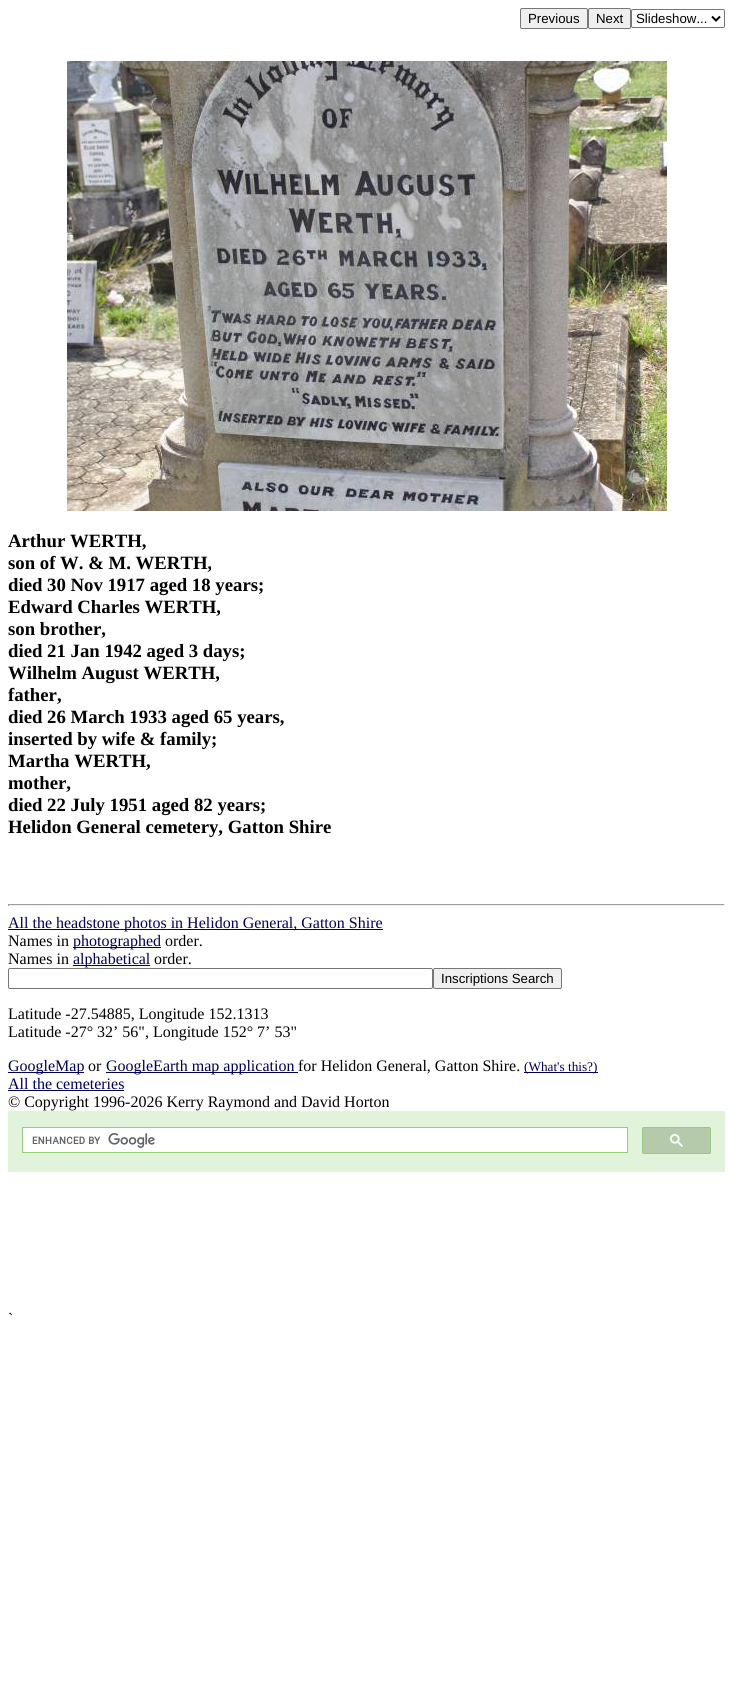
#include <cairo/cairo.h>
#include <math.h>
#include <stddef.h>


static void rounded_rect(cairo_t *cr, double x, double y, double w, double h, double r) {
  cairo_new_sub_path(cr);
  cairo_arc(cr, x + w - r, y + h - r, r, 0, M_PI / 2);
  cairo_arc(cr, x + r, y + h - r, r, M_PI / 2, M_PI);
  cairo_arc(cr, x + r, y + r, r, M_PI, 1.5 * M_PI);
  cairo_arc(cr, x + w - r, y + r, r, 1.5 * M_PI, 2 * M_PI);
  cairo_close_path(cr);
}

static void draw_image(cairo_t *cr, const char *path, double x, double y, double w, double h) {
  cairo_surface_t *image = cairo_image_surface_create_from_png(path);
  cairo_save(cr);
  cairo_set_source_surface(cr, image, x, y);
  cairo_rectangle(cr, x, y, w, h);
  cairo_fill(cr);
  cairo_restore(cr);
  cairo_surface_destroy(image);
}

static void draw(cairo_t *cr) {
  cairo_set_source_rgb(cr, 1, 1, 1);
  cairo_paint(cr);
  cairo_set_source_rgb(cr, 239 / 255.0, 239 / 255.0, 239 / 255.0);
  rounded_rect(cr, 520.5, 8.5, 67, 20, 1.5);
  cairo_fill_preserve(cr);
  cairo_set_source_rgb(cr, 118 / 255.0, 118 / 255.0, 118 / 255.0);
  cairo_set_line_width(cr, 1);
  cairo_stroke(cr);
  cairo_set_source_rgb(cr, 239 / 255.0, 239 / 255.0, 239 / 255.0);
  rounded_rect(cr, 588.5, 8.5, 42, 20, 1.5);
  cairo_fill_preserve(cr);
  cairo_set_source_rgb(cr, 118 / 255.0, 118 / 255.0, 118 / 255.0);
  cairo_stroke(cr);
  rounded_rect(cr, 631.5, 9.5, 93, 18, 1.5);
  cairo_stroke(cr);
  cairo_new_path(cr);
  cairo_move_to(cr, 712, 16.5);
  cairo_line_to(cr, 716, 20.5);
  cairo_line_to(cr, 720, 16.5);
  cairo_set_source_rgb(cr, 0, 0, 0);
  cairo_set_line_width(cr, 2);
  cairo_stroke(cr);
  draw_image(cr, "images/1.png", 67, 61, 600, 450);
  cairo_set_source_rgb(cr, 159 / 255.0, 159 / 255.0, 159 / 255.0);
  cairo_rectangle(cr, 8, 904, 717, 1);
  cairo_fill(cr);
  cairo_set_source_rgb(cr, 238 / 255.0, 238 / 255.0, 238 / 255.0);
  cairo_rectangle(cr, 724, 904, 1, 2);
  cairo_fill(cr);
  cairo_rectangle(cr, 8, 905, 717, 1);
  cairo_fill(cr);
  cairo_set_source_rgb(cr, 159 / 255.0, 159 / 255.0, 159 / 255.0);
  cairo_rectangle(cr, 8, 904, 1, 2);
  cairo_fill(cr);
  cairo_set_source_rgb(cr, 0, 0, 85 / 255.0);
  cairo_rectangle(cr, 8, 929, 375, 1);
  cairo_fill(cr);
  cairo_rectangle(cr, 73, 947, 88, 1);
  cairo_fill(cr);
  cairo_rectangle(cr, 73, 965, 77, 1);
  cairo_fill(cr);
  rounded_rect(cr, 8.5, 968.5, 424, 20, 1.5);
  cairo_set_source_rgb(cr, 118 / 255.0, 118 / 255.0, 118 / 255.0);
  cairo_set_line_width(cr, 1);
  cairo_stroke(cr);
  cairo_set_source_rgb(cr, 239 / 255.0, 239 / 255.0, 239 / 255.0);
  rounded_rect(cr, 433.5, 968.5, 128, 20, 1.5);
  cairo_fill_preserve(cr);
  cairo_set_source_rgb(cr, 118 / 255.0, 118 / 255.0, 118 / 255.0);
  cairo_stroke(cr);
  cairo_set_source_rgb(cr, 0, 0, 85 / 255.0);
  cairo_rectangle(cr, 8, 1072, 76, 1);
  cairo_fill(cr);
  cairo_rectangle(cr, 106, 1072, 192, 1);
  cairo_fill(cr);
  cairo_rectangle(cr, 524, 1072, 74, 1);
  cairo_fill(cr);
  cairo_rectangle(cr, 8, 1090, 116, 1);
  cairo_fill(cr);
  cairo_set_source_rgb(cr, 225 / 255.0, 243 / 255.0, 218 / 255.0);
  cairo_rectangle(cr, 8, 1111, 717, 61);
  cairo_fill(cr);
  cairo_set_source_rgb(cr, 1, 1, 1);
  cairo_rectangle(cr, 22.5, 1127.5, 605, 25);
  cairo_fill_preserve(cr);
  cairo_set_source_rgb(cr, 148 / 255.0, 204 / 255.0, 122 / 255.0);
  cairo_stroke(cr);
  draw_image(cr, "images/2.png", 32, 1133, 123, 15);
  cairo_set_source_rgb(cr, 181 / 255.0, 201 / 255.0, 171 / 255.0);
  rounded_rect(cr, 642.5, 1127.5, 68, 26, 1.5);
  cairo_fill_preserve(cr);
  cairo_set_source_rgb(cr, 148 / 255.0, 204 / 255.0, 122 / 255.0);
  cairo_stroke(cr);
  draw_image(cr, "images/3.png", 670, 1134, 13, 13);
  cairo_select_font_face(cr, "Liberation Sans", CAIRO_FONT_SLANT_NORMAL, CAIRO_FONT_WEIGHT_NORMAL);
  cairo_set_font_size(cr, 13.25);
  cairo_set_source_rgb(cr, 0, 0, 0);
  cairo_move_to(cr, 528, 23);
  cairo_show_text(cr, "Previous");
  cairo_move_to(cr, 596, 23);
  cairo_show_text(cr, "Next");
  cairo_move_to(cr, 636, 23);
  cairo_show_text(cr, "Slideshow...");
  cairo_select_font_face(cr, "Liberation Serif", CAIRO_FONT_SLANT_NORMAL, CAIRO_FONT_WEIGHT_BOLD);
  cairo_set_font_size(cr, 18.75);
  cairo_move_to(cr, 8, 547);
  cairo_show_text(cr, "Arthur WERTH,");
  cairo_move_to(cr, 8, 569);
  cairo_show_text(cr, "son of W. & M. WERTH,");
  cairo_move_to(cr, 8, 591);
  cairo_show_text(cr, "died 30 Nov 1917 aged 18 years;");
  cairo_move_to(cr, 8, 613);
  cairo_show_text(cr, "Edward Charles WERTH,");
  cairo_move_to(cr, 8, 635);
  cairo_show_text(cr, "son brother,");
  cairo_move_to(cr, 8, 657);
  cairo_show_text(cr, "died 21 Jan 1942 aged 3 days;");
  cairo_move_to(cr, 8, 679);
  cairo_show_text(cr, "Wilhelm August WERTH,");
  cairo_move_to(cr, 8, 701);
  cairo_show_text(cr, "father,");
  cairo_move_to(cr, 8, 723);
  cairo_show_text(cr, "died 26 March 1933 aged 65 years,");
  cairo_move_to(cr, 8, 745);
  cairo_show_text(cr, "inserted by wife & family;");
  cairo_move_to(cr, 8, 767);
  cairo_show_text(cr, "Martha WERTH,");
  cairo_move_to(cr, 8, 789);
  cairo_show_text(cr, "mother,");
  cairo_move_to(cr, 8, 811);
  cairo_show_text(cr, "died 22 July 1951 aged 82 years;");
  cairo_move_to(cr, 8, 833);
  cairo_show_text(cr, "Helidon General cemetery, Gatton Shire");
  cairo_select_font_face(cr, "Liberation Serif", CAIRO_FONT_SLANT_NORMAL, CAIRO_FONT_WEIGHT_NORMAL);
  cairo_set_font_size(cr, 16);
  cairo_set_source_rgb(cr, 0, 0, 85 / 255.0);
  cairo_move_to(cr, 8, 928);
  cairo_show_text(cr, "All the headstone photos in Helidon General, Gatton Shire");
  cairo_set_source_rgb(cr, 0, 0, 0);
  cairo_move_to(cr, 8, 946);
  cairo_show_text(cr, "Names in");
  cairo_set_source_rgb(cr, 0, 0, 85 / 255.0);
  cairo_move_to(cr, 73, 946);
  cairo_show_text(cr, "photographed");
  cairo_set_source_rgb(cr, 0, 0, 0);
  cairo_move_to(cr, 165, 946);
  cairo_show_text(cr, "order.");
  cairo_move_to(cr, 8, 964);
  cairo_show_text(cr, "Names in");
  cairo_set_source_rgb(cr, 0, 0, 85 / 255.0);
  cairo_move_to(cr, 73, 964);
  cairo_show_text(cr, "alphabetical");
  cairo_set_source_rgb(cr, 0, 0, 0);
  cairo_move_to(cr, 154, 964);
  cairo_show_text(cr, "order.");
  cairo_select_font_face(cr, "Liberation Sans", CAIRO_FONT_SLANT_NORMAL, CAIRO_FONT_WEIGHT_NORMAL);
  cairo_set_font_size(cr, 13.25);
  cairo_move_to(cr, 441, 983);
  cairo_show_text(cr, "Inscriptions Search");
  cairo_select_font_face(cr, "Liberation Serif", CAIRO_FONT_SLANT_NORMAL, CAIRO_FONT_WEIGHT_NORMAL);
  cairo_set_font_size(cr, 16);
  cairo_move_to(cr, 8, 1019);
  cairo_show_text(cr, "Latitude -27.54885, Longitude 152.1313");
  cairo_move_to(cr, 8, 1037);
  cairo_show_text(cr, "Latitude -27° 32’ 56\", Longitude 152° 7’ 53\"");
  cairo_set_source_rgb(cr, 0, 0, 85 / 255.0);
  cairo_move_to(cr, 8, 1071);
  cairo_show_text(cr, "GoogleMap");
  cairo_set_source_rgb(cr, 0, 0, 0);
  cairo_move_to(cr, 88, 1071);
  cairo_show_text(cr, "or");
  cairo_set_source_rgb(cr, 0, 0, 85 / 255.0);
  cairo_move_to(cr, 106, 1071);
  cairo_show_text(cr, "GoogleEarth map application");
  cairo_set_source_rgb(cr, 0, 0, 0);
  cairo_move_to(cr, 298, 1071);
  cairo_show_text(cr, "for Helidon General, Gatton Shire.");
  cairo_set_font_size(cr, 13.25);
  cairo_set_source_rgb(cr, 0, 0, 85 / 255.0);
  cairo_move_to(cr, 524, 1071);
  cairo_show_text(cr, "(What's this?)");
  cairo_set_font_size(cr, 16);
  cairo_move_to(cr, 8, 1089);
  cairo_show_text(cr, "All the cemeteries");
  cairo_set_source_rgb(cr, 0, 0, 0);
  cairo_move_to(cr, 8, 1107);
  cairo_show_text(cr, "© Copyright 1996-2026 Kerry Raymond and David Horton");
  cairo_move_to(cr, 8, 1324);
  cairo_show_text(cr, "`");
}

int main(void) {
  cairo_surface_t *surface = cairo_image_surface_create(CAIRO_FORMAT_RGB24, 733, 1706);
  cairo_t *cr = cairo_create(surface);
  cairo_font_options_t *options = cairo_font_options_create();
  cairo_font_options_set_hint_metrics(options, CAIRO_HINT_METRICS_OFF);
  cairo_font_options_set_hint_style(options, CAIRO_HINT_STYLE_NONE);
  cairo_set_font_options(cr, options);
  cairo_set_miter_limit(cr, 4);
  draw(cr);
  cairo_surface_write_to_png(surface, "out.png");
  cairo_font_options_destroy(options);
  cairo_destroy(cr);
  cairo_surface_destroy(surface);
  return 0;
}
